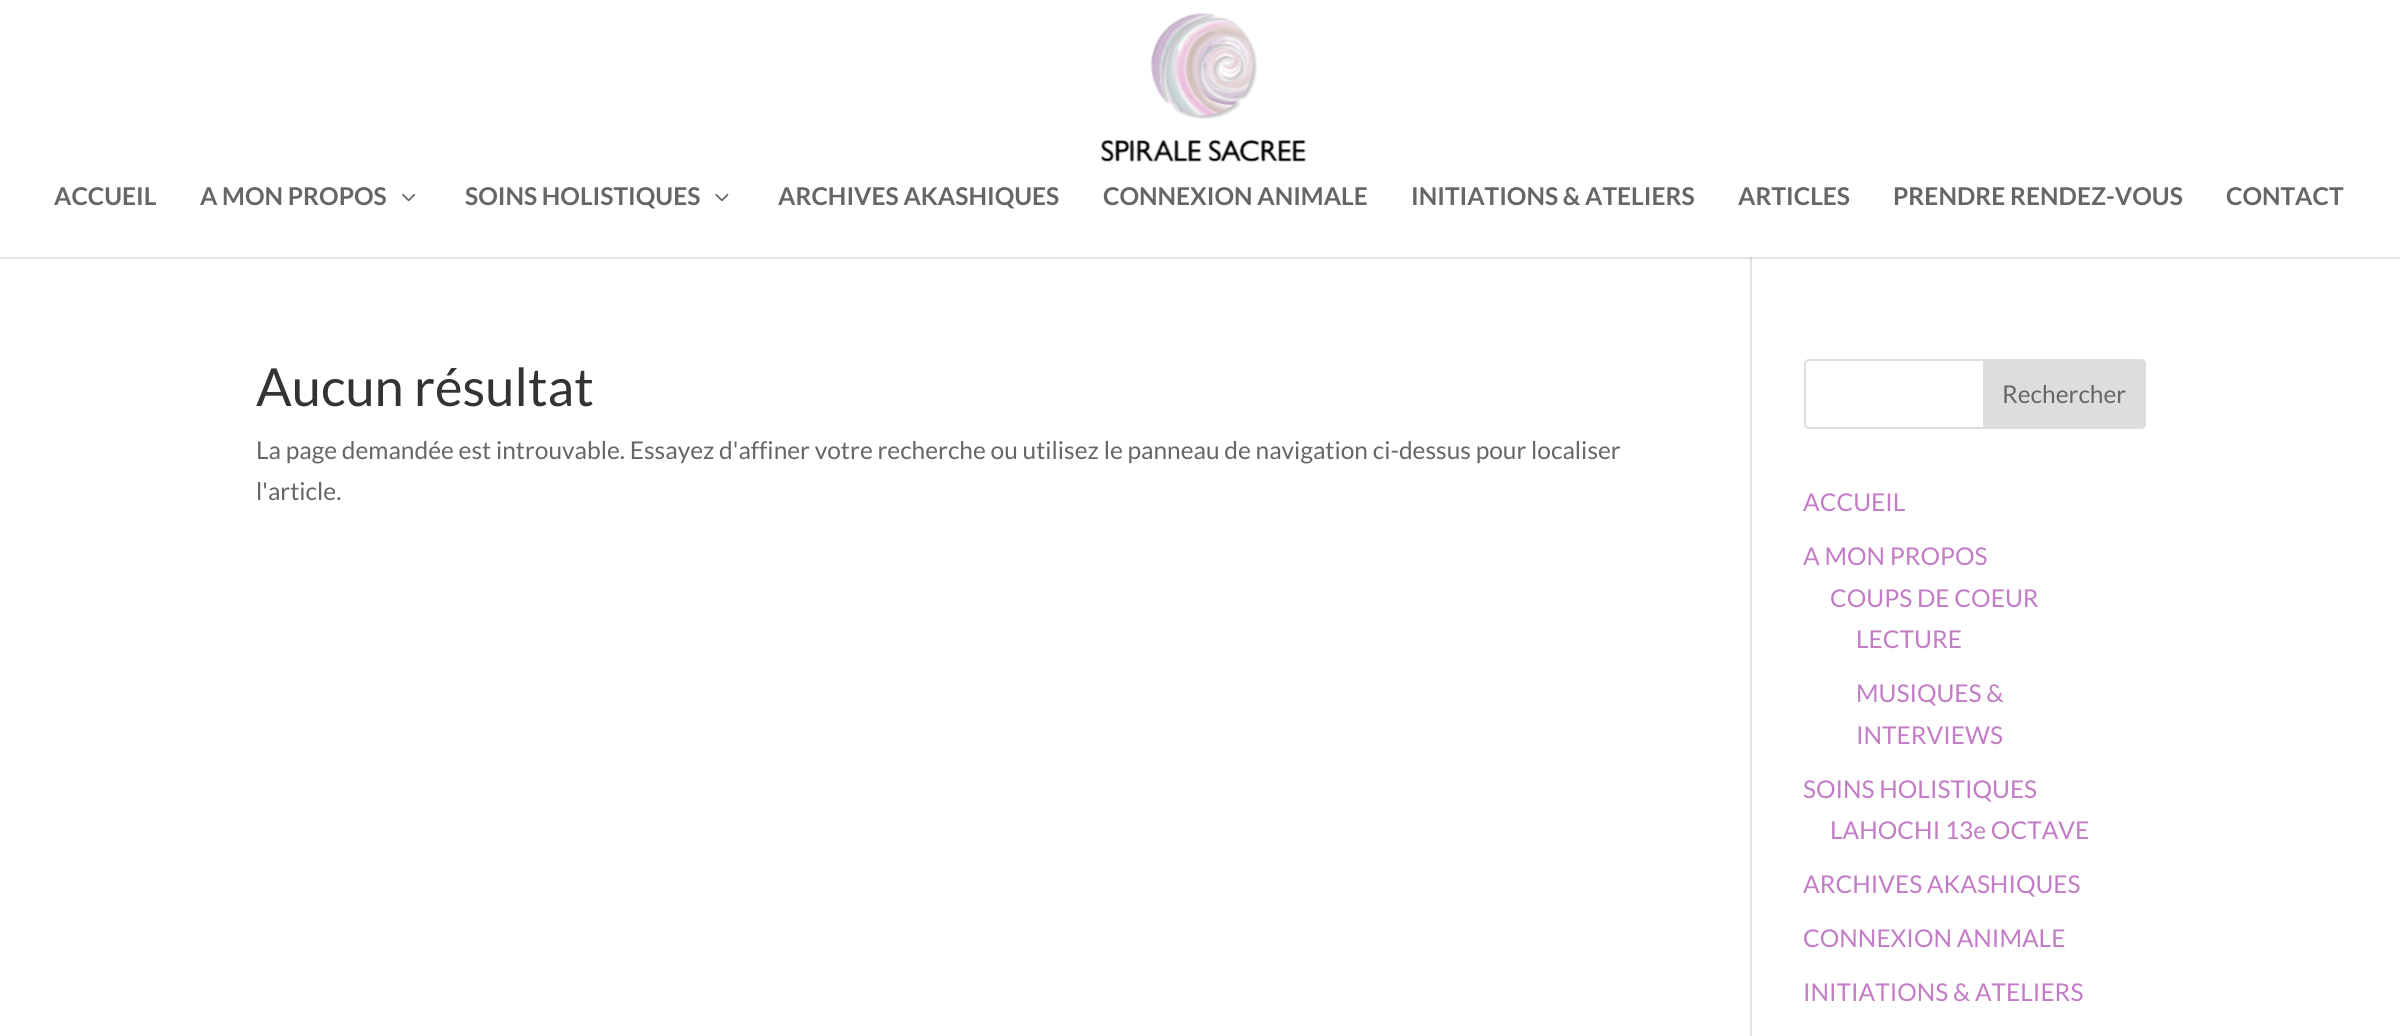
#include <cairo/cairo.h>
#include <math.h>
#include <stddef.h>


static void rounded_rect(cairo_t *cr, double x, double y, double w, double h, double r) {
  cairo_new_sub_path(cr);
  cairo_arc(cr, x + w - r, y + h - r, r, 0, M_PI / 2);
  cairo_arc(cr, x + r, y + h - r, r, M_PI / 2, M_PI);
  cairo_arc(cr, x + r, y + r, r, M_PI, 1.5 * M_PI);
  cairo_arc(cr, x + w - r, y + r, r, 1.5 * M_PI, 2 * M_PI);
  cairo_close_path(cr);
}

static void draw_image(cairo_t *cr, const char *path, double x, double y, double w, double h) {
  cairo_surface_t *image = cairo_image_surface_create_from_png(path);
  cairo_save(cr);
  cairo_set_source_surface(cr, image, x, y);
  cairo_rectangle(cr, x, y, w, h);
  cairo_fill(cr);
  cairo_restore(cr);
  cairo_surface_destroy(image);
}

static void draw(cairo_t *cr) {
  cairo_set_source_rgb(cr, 1, 1, 1);
  cairo_paint(cr);
  cairo_set_source_rgb(cr, 230 / 255.0, 230 / 255.0, 230 / 255.0);
  cairo_rectangle(cr, 0, 257, 2400, 2);
  cairo_fill(cr);
  draw_image(cr, "images/1.png", 1100, 13, 207, 149);
  draw_image(cr, "images/2.png", 402, 193, 14, 9);
  draw_image(cr, "images/3.png", 715, 193, 14, 9);
  cairo_set_source_rgb(cr, 226 / 255.0, 226 / 255.0, 226 / 255.0);
  cairo_rectangle(cr, 1750, 257, 2, 779);
  cairo_fill(cr);
  cairo_set_source_rgb(cr, 203 / 255.0, 203 / 255.0, 203 / 255.0);
  cairo_rectangle(cr, 1750, 257, 2, 2);
  cairo_fill(cr);
  rounded_rect(cr, 1805, 360, 340, 68, 4);
  cairo_set_source_rgb(cr, 221 / 255.0, 221 / 255.0, 221 / 255.0);
  cairo_stroke(cr);
  cairo_new_path(cr);
  cairo_move_to(cr, 1984, 360);
  cairo_line_to(cr, 2141, 360);
  cairo_curve_to(cr, 2143, 360, 2145, 362, 2145, 364);
  cairo_line_to(cr, 2145, 424);
  cairo_curve_to(cr, 2145, 426, 2143, 428, 2141, 428);
  cairo_line_to(cr, 1984, 428);
  cairo_close_path(cr);
  cairo_fill_preserve(cr);
  cairo_stroke(cr);
  cairo_select_font_face(cr, "Lato", CAIRO_FONT_SLANT_NORMAL, CAIRO_FONT_WEIGHT_BOLD);
  cairo_set_font_size(cr, 24.5);
  cairo_set_source_rgb(cr, 102 / 255.0, 102 / 255.0, 102 / 255.0);
  cairo_move_to(cr, 54, 205);
  cairo_show_text(cr, "ACCUEIL");
  cairo_move_to(cr, 200, 205);
  cairo_show_text(cr, "A MON PROPOS");
  cairo_move_to(cr, 465, 205);
  cairo_show_text(cr, "SOINS HOLISTIQUES");
  cairo_move_to(cr, 778, 205);
  cairo_show_text(cr, "ARCHIVES AKASHIQUES");
  cairo_move_to(cr, 1103, 205);
  cairo_show_text(cr, "CONNEXION ANIMALE");
  cairo_move_to(cr, 1411, 205);
  cairo_show_text(cr, "INITIATIONS & ATELIERS");
  cairo_move_to(cr, 1738, 205);
  cairo_show_text(cr, "ARTICLES");
  cairo_move_to(cr, 1893, 205);
  cairo_show_text(cr, "PRENDRE RENDEZ-VOUS");
  cairo_move_to(cr, 2226, 205);
  cairo_show_text(cr, "CONTACT");
  cairo_select_font_face(cr, "Lato", CAIRO_FONT_SLANT_NORMAL, CAIRO_FONT_WEIGHT_NORMAL);
  cairo_set_font_size(cr, 52.5);
  cairo_set_source_rgb(cr, 51 / 255.0, 51 / 255.0, 51 / 255.0);
  cairo_move_to(cr, 256, 406);
  cairo_show_text(cr, "Aucun résultat");
  cairo_set_font_size(cr, 24.5);
  cairo_set_source_rgb(cr, 102 / 255.0, 102 / 255.0, 102 / 255.0);
  cairo_move_to(cr, 256, 459);
  cairo_show_text(cr, "La page demandée est introuvable. Essayez d'affiner votre recherche ou utilisez le panneau de navigation ci-dessus pour localiser");
  cairo_move_to(cr, 256, 500);
  cairo_show_text(cr, "l'article.");
  cairo_move_to(cr, 2002, 403);
  cairo_show_text(cr, "Rechercher");
  cairo_set_source_rgb(cr, 195 / 255.0, 124 / 255.0, 198 / 255.0);
  cairo_move_to(cr, 1803, 511);
  cairo_show_text(cr, "ACCUEIL");
  cairo_move_to(cr, 1803, 565);
  cairo_show_text(cr, "A MON PROPOS");
  cairo_move_to(cr, 1830, 607);
  cairo_show_text(cr, "COUPS DE COEUR");
  cairo_move_to(cr, 1856, 648);
  cairo_show_text(cr, "LECTURE");
  cairo_move_to(cr, 1856, 702);
  cairo_show_text(cr, "MUSIQUES &");
  cairo_move_to(cr, 1856, 744);
  cairo_show_text(cr, "INTERVIEWS");
  cairo_move_to(cr, 1803, 798);
  cairo_show_text(cr, "SOINS HOLISTIQUES");
  cairo_move_to(cr, 1830, 839);
  cairo_show_text(cr, "LAHOCHI 13e OCTAVE");
  cairo_move_to(cr, 1803, 893);
  cairo_show_text(cr, "ARCHIVES AKASHIQUES");
  cairo_move_to(cr, 1803, 947);
  cairo_show_text(cr, "CONNEXION ANIMALE");
  cairo_move_to(cr, 1803, 1001);
  cairo_show_text(cr, "INITIATIONS & ATELIERS");
}

int main(void) {
  cairo_surface_t *surface = cairo_image_surface_create(CAIRO_FORMAT_RGB24, 2400, 1036);
  cairo_t *cr = cairo_create(surface);
  cairo_font_options_t *options = cairo_font_options_create();
  cairo_font_options_set_hint_metrics(options, CAIRO_HINT_METRICS_OFF);
  cairo_font_options_set_hint_style(options, CAIRO_HINT_STYLE_NONE);
  cairo_set_font_options(cr, options);
  cairo_set_miter_limit(cr, 4);
  draw(cr);
  cairo_surface_write_to_png(surface, "out.png");
  cairo_font_options_destroy(options);
  cairo_destroy(cr);
  cairo_surface_destroy(surface);
  return 0;
}
